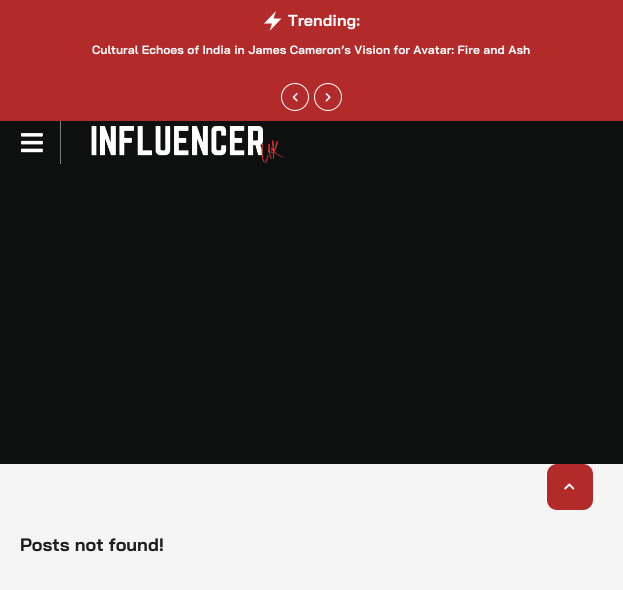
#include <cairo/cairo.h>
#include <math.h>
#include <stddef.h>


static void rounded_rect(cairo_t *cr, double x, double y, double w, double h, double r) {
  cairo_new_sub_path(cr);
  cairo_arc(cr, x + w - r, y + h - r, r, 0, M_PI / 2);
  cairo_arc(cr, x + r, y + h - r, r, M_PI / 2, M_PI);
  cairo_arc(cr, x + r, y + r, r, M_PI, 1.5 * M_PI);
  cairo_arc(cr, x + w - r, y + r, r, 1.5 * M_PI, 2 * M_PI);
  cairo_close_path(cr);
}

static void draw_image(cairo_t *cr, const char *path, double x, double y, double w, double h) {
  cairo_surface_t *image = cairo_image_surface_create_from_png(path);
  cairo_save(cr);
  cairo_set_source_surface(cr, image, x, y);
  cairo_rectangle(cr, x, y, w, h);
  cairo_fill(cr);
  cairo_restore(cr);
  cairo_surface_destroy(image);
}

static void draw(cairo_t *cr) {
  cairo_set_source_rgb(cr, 245 / 255.0, 245 / 255.0, 245 / 255.0);
  cairo_paint(cr);
  cairo_set_source_rgb(cr, 179 / 255.0, 42 / 255.0, 42 / 255.0);
  cairo_rectangle(cr, 0, 0, 623, 121);
  cairo_fill(cr);
  cairo_set_source_rgb(cr, 1, 1, 1);
  cairo_new_path(cr);
  cairo_move_to(cr, 269.5, 31);
  cairo_line_to(cr, 272, 23.5);
  cairo_line_to(cr, 264, 23.5);
  cairo_line_to(cr, 276, 11);
  cairo_line_to(cr, 273.5, 18.5);
  cairo_line_to(cr, 281.5, 18.5);
  cairo_close_path(cr);
  cairo_fill(cr);
  cairo_arc(cr, 295, 97, 13.5, 0, 2 * M_PI);
  cairo_set_line_width(cr, 1);
  cairo_stroke(cr);
  draw_image(cr, "images/1.png", 292, 93, 6, 9);
  cairo_arc(cr, 328, 97, 13.5, 0, 2 * M_PI);
  cairo_stroke(cr);
  draw_image(cr, "images/2.png", 325, 93, 6, 9);
  cairo_set_source_rgb(cr, 14 / 255.0, 15 / 255.0, 15 / 255.0);
  cairo_rectangle(cr, 0, 121, 623, 343);
  cairo_fill(cr);
  draw_image(cr, "images/3.png", 21, 133, 22, 20);
  cairo_set_source_rgb(cr, 127 / 255.0, 128 / 255.0, 128 / 255.0);
  cairo_rectangle(cr, 60, 121, 1, 43);
  cairo_fill(cr);
  draw_image(cr, "images/4.png", 91, 126, 193, 37);
  cairo_set_source_rgb(cr, 179 / 255.0, 42 / 255.0, 42 / 255.0);
  rounded_rect(cr, 547, 464, 46, 46, 10);
  cairo_fill(cr);
  draw_image(cr, "images/5.png", 564, 483, 11, 7);
  cairo_select_font_face(cr, "Bai Jamjuree", CAIRO_FONT_SLANT_NORMAL, CAIRO_FONT_WEIGHT_BOLD);
  cairo_set_font_size(cr, 16);
  cairo_set_source_rgb(cr, 1, 1, 1);
  cairo_move_to(cr, 288, 26);
  cairo_show_text(cr, "Trending:");
  cairo_set_font_size(cr, 12);
  cairo_move_to(cr, 92, 54);
  cairo_show_text(cr, "Cultural Echoes of India in James Cameron’s Vision for Avatar: Fire and Ash");
  cairo_set_font_size(cr, 18);
  cairo_set_source_rgb(cr, 31 / 255.0, 31 / 255.0, 31 / 255.0);
  cairo_move_to(cr, 20, 551);
  cairo_show_text(cr, "Posts not found!");
}

int main(void) {
  cairo_surface_t *surface = cairo_image_surface_create(CAIRO_FORMAT_RGB24, 623, 590);
  cairo_t *cr = cairo_create(surface);
  cairo_font_options_t *options = cairo_font_options_create();
  cairo_font_options_set_hint_metrics(options, CAIRO_HINT_METRICS_OFF);
  cairo_font_options_set_hint_style(options, CAIRO_HINT_STYLE_NONE);
  cairo_set_font_options(cr, options);
  cairo_set_miter_limit(cr, 4);
  draw(cr);
  cairo_surface_write_to_png(surface, "out.png");
  cairo_font_options_destroy(options);
  cairo_destroy(cr);
  cairo_surface_destroy(surface);
  return 0;
}
